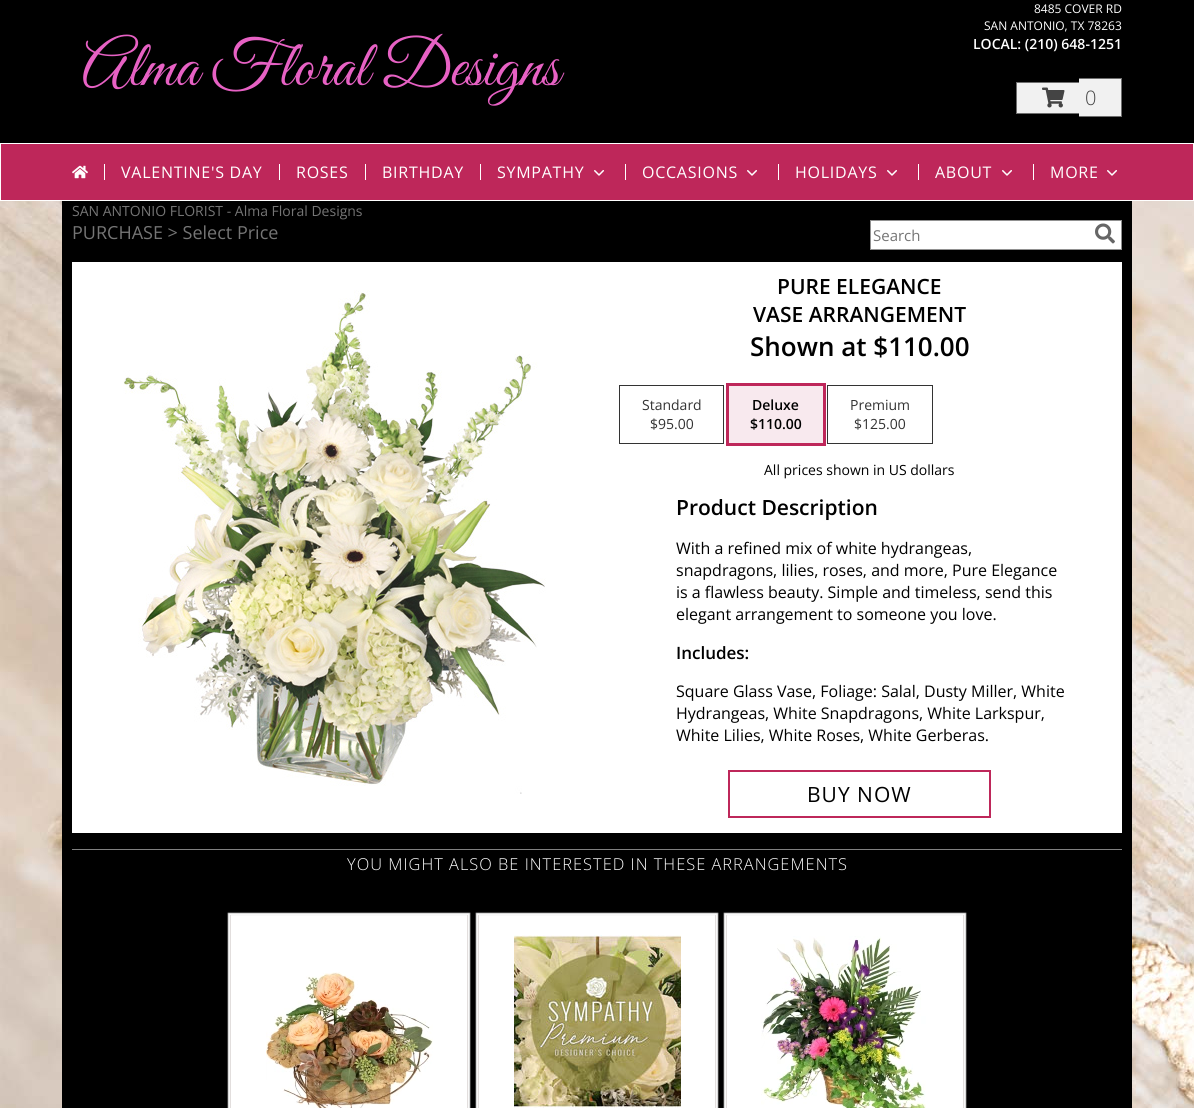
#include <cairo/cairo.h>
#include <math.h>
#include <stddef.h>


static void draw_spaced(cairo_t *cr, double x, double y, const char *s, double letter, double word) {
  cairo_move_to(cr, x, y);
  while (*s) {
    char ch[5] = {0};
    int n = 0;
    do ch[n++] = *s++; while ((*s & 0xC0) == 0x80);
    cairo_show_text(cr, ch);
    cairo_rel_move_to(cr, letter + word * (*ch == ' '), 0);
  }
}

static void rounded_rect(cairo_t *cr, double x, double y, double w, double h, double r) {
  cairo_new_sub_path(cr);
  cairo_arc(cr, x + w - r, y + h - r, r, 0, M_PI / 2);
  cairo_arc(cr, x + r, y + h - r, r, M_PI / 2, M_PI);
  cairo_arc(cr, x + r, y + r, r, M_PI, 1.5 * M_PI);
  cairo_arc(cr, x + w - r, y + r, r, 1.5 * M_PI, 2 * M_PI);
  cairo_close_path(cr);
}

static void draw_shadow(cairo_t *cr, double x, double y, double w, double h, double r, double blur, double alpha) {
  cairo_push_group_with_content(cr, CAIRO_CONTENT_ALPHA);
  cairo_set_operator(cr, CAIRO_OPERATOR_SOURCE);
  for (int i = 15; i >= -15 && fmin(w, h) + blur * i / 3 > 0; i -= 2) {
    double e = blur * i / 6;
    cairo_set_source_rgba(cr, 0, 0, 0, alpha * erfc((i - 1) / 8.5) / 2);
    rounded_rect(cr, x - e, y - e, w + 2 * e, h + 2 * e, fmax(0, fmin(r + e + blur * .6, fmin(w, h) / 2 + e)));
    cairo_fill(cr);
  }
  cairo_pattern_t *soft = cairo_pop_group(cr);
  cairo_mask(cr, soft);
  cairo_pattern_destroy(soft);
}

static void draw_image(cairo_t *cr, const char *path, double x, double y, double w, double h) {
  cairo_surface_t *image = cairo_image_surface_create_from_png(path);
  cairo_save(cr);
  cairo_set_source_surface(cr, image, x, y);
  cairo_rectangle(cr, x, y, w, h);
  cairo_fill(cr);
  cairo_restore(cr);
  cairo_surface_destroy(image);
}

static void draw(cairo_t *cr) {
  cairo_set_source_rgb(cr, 1, 1, 1);
  cairo_paint(cr);
  draw_image(cr, "images/1.png", 0, 201, 1194, 907);
  cairo_set_source_rgb(cr, 0, 0, 0);
  cairo_rectangle(cr, 62, 201, 1070, 907);
  cairo_fill(cr);
  cairo_rectangle(cr, 0, 0, 1194, 143);
  cairo_fill(cr);
  cairo_set_source_rgb(cr, 241 / 255.0, 241 / 255.0, 241 / 255.0);
  cairo_rectangle(cr, 1017, 83, 62, 30);
  cairo_fill(cr);
  cairo_set_source_rgb(cr, 110 / 255.0, 110 / 255.0, 110 / 255.0);
  cairo_rectangle(cr, 1016, 82, 63, 1);
  cairo_fill(cr);
  cairo_rectangle(cr, 1016, 113, 63, 1);
  cairo_fill(cr);
  cairo_rectangle(cr, 1016, 82, 1, 32);
  cairo_fill(cr);
  cairo_set_source_rgb(cr, 241 / 255.0, 241 / 255.0, 241 / 255.0);
  cairo_rectangle(cr, 1079, 78, 6, 39);
  cairo_fill(cr);
  cairo_set_source_rgb(cr, 110 / 255.0, 110 / 255.0, 110 / 255.0);
  cairo_rectangle(cr, 1079, 78, 43, 1);
  cairo_fill(cr);
  cairo_rectangle(cr, 1079, 116, 6, 1);
  cairo_fill(cr);
  cairo_set_source_rgb(cr, 241 / 255.0, 241 / 255.0, 241 / 255.0);
  cairo_rectangle(cr, 1085, 79, 36, 37);
  cairo_fill(cr);
  cairo_set_source_rgb(cr, 110 / 255.0, 110 / 255.0, 110 / 255.0);
  cairo_rectangle(cr, 1121, 78, 1, 39);
  cairo_fill(cr);
  cairo_rectangle(cr, 1085, 116, 37, 1);
  cairo_fill(cr);
  draw_image(cr, "images/2.png", 1042, 87, 23, 21);
  cairo_set_source_rgb(cr, 190 / 255.0, 39 / 255.0, 90 / 255.0);
  cairo_rectangle(cr, 1, 144, 1192, 56);
  cairo_fill(cr);
  draw_image(cr, "images/3.png", 72, 165, 16, 14);
  cairo_set_source_rgb(cr, 1, 1, 1);
  cairo_rectangle(cr, 104, 164, 1, 16);
  cairo_fill(cr);
  cairo_rectangle(cr, 279, 164, 1, 16);
  cairo_fill(cr);
  cairo_rectangle(cr, 365, 164, 1, 16);
  cairo_fill(cr);
  cairo_rectangle(cr, 480, 164, 1, 16);
  cairo_fill(cr);
  draw_image(cr, "images/4.png", 594, 170, 10, 6);
  cairo_rectangle(cr, 625, 164, 1, 16);
  cairo_fill(cr);
  draw_image(cr, "images/4.png", 747, 170, 10, 6);
  cairo_rectangle(cr, 778, 164, 1, 16);
  cairo_fill(cr);
  draw_image(cr, "images/4.png", 887, 170, 10, 6);
  cairo_rectangle(cr, 918, 164, 1, 16);
  cairo_fill(cr);
  draw_image(cr, "images/4.png", 1002, 170, 10, 6);
  cairo_rectangle(cr, 1033, 164, 1, 16);
  cairo_fill(cr);
  draw_image(cr, "images/4.png", 1107, 170, 10, 6);
  cairo_rectangle(cr, 870.5, 220.5, 251, 29);
  cairo_fill_preserve(cr);
  cairo_set_source_rgb(cr, 145 / 255.0, 145 / 255.0, 145 / 255.0);
  cairo_set_line_width(cr, 1);
  cairo_stroke(cr);
  draw_image(cr, "images/5.png", 1095, 223, 20, 21);
  cairo_set_source_rgb(cr, 1, 1, 1);
  cairo_rectangle(cr, 72, 262, 1050, 571);
  cairo_fill(cr);
  draw_image(cr, "images/6.png", 123, 290, 423, 504);
  cairo_rectangle(cr, 619.5, 385.5, 104, 58);
  cairo_set_source_rgb(cr, 51 / 255.0, 51 / 255.0, 51 / 255.0);
  cairo_stroke(cr);
  cairo_rectangle(cr, 727.5, 384.5, 97, 60);
  cairo_set_source_rgb(cr, 190 / 255.0, 39 / 255.0, 90 / 255.0);
  cairo_set_line_width(cr, 3);
  cairo_stroke(cr);
  cairo_set_source_rgb(cr, 248 / 255.0, 233 / 255.0, 238 / 255.0);
  cairo_rectangle(cr, 729, 386, 94, 57);
  cairo_fill(cr);
  cairo_rectangle(cr, 827.5, 385.5, 105, 58);
  cairo_set_source_rgb(cr, 51 / 255.0, 51 / 255.0, 51 / 255.0);
  cairo_set_line_width(cr, 1);
  cairo_stroke(cr);
  cairo_rectangle(cr, 729, 771, 261, 46);
  cairo_set_source_rgb(cr, 190 / 255.0, 39 / 255.0, 90 / 255.0);
  cairo_set_line_width(cr, 2);
  cairo_stroke(cr);
  cairo_set_source_rgb(cr, 128 / 255.0, 128 / 255.0, 128 / 255.0);
  cairo_rectangle(cr, 72, 849, 1050, 1);
  cairo_fill(cr);
  cairo_set_source_rgb(cr, 249 / 255.0, 249 / 255.0, 249 / 255.0);
  draw_shadow(cr, 228, 913, 242, 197, 0, 0.5, 1);
  cairo_set_source_rgb(cr, 1, 1, 1);
  cairo_rectangle(cr, 231, 916, 236, 192);
  cairo_fill(cr);
  cairo_set_source_rgb(cr, 226 / 255.0, 222 / 255.0, 221 / 255.0);
  cairo_rectangle(cr, 467, 915, 1, 193);
  cairo_fill(cr);
  cairo_rectangle(cr, 230, 915, 1, 193);
  cairo_fill(cr);
  draw_image(cr, "images/7.png", 266, 972, 167, 136);
  cairo_set_source_rgb(cr, 249 / 255.0, 249 / 255.0, 249 / 255.0);
  draw_shadow(cr, 476, 913, 242, 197, 0, 0.5, 1);
  cairo_set_source_rgb(cr, 1, 1, 1);
  cairo_rectangle(cr, 479, 916, 236, 192);
  cairo_fill(cr);
  cairo_set_source_rgb(cr, 226 / 255.0, 222 / 255.0, 221 / 255.0);
  cairo_rectangle(cr, 715, 915, 1, 193);
  cairo_fill(cr);
  cairo_rectangle(cr, 478, 915, 1, 193);
  cairo_fill(cr);
  draw_image(cr, "images/8.png", 514, 935, 167, 173);
  cairo_set_source_rgb(cr, 249 / 255.0, 249 / 255.0, 249 / 255.0);
  draw_shadow(cr, 724, 913, 242, 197, 0, 0.5, 1);
  cairo_set_source_rgb(cr, 1, 1, 1);
  cairo_rectangle(cr, 727, 916, 236, 192);
  cairo_fill(cr);
  cairo_set_source_rgb(cr, 226 / 255.0, 222 / 255.0, 221 / 255.0);
  cairo_rectangle(cr, 963, 915, 1, 193);
  cairo_fill(cr);
  cairo_rectangle(cr, 726, 915, 1, 193);
  cairo_fill(cr);
  draw_image(cr, "images/9.png", 761, 936, 165, 172);
  cairo_select_font_face(cr, "Great Vibes", CAIRO_FONT_SLANT_NORMAL, CAIRO_FONT_WEIGHT_NORMAL);
  cairo_set_font_size(cr, 65);
  cairo_set_source_rgb(cr, 231 / 255.0, 97 / 255.0, 196 / 255.0);
  draw_spaced(cr, 82, 85, "Alma Floral Designs", 0, 1);
  cairo_select_font_face(cr, "Open Sans", CAIRO_FONT_SLANT_NORMAL, CAIRO_FONT_WEIGHT_NORMAL);
  cairo_set_font_size(cr, 12);
  cairo_set_source_rgb(cr, 1, 1, 1);
  cairo_move_to(cr, 1034, 13);
  cairo_show_text(cr, "8485 COVER RD");
  cairo_move_to(cr, 984, 30);
  cairo_show_text(cr, "SAN ANTONIO, TX 78263");
  cairo_select_font_face(cr, "Open Sans SemiBold", CAIRO_FONT_SLANT_NORMAL, CAIRO_FONT_WEIGHT_NORMAL);
  cairo_set_font_size(cr, 14);
  cairo_move_to(cr, 973, 49);
  cairo_show_text(cr, "LOCAL: (210) 648-1251");
  cairo_select_font_face(cr, "Open Sans Light", CAIRO_FONT_SLANT_NORMAL, CAIRO_FONT_WEIGHT_NORMAL);
  cairo_set_font_size(cr, 20);
  cairo_set_source_rgb(cr, 68 / 255.0, 68 / 255.0, 68 / 255.0);
  cairo_move_to(cr, 1085, 105);
  cairo_show_text(cr, "0");
  cairo_select_font_face(cr, "Open Sans", CAIRO_FONT_SLANT_NORMAL, CAIRO_FONT_WEIGHT_NORMAL);
  cairo_set_font_size(cr, 16);
  cairo_set_source_rgb(cr, 1, 1, 1);
  draw_spaced(cr, 121, 178, "VALENTINE'S DAY", 0.75, 0);
  draw_spaced(cr, 296, 178, "ROSES", 0.75, 0);
  draw_spaced(cr, 382, 178, "BIRTHDAY", 0.75, 0);
  draw_spaced(cr, 497, 178, "SYMPATHY", 0.75, 0);
  draw_spaced(cr, 642, 178, "OCCASIONS", 0.75, 0);
  draw_spaced(cr, 795, 178, "HOLIDAYS", 0.75, 0);
  draw_spaced(cr, 935, 178, "ABOUT", 0.75, 0);
  draw_spaced(cr, 1050, 178, "MORE", 0.75, 0);
  cairo_set_font_size(cr, 14);
  cairo_set_source_rgb(cr, 117 / 255.0, 117 / 255.0, 117 / 255.0);
  cairo_move_to(cr, 72, 216);
  cairo_show_text(cr, "SAN ANTONIO FLORIST - Alma Floral Designs");
  cairo_set_font_size(cr, 18);
  cairo_move_to(cr, 72, 239);
  cairo_show_text(cr, "PURCHASE > Select Price");
  cairo_set_font_size(cr, 15);
  cairo_move_to(cr, 873, 241);
  cairo_show_text(cr, "Search");
  cairo_select_font_face(cr, "Open Sans SemiBold", CAIRO_FONT_SLANT_NORMAL, CAIRO_FONT_WEIGHT_NORMAL);
  cairo_set_font_size(cr, 21);
  cairo_set_source_rgb(cr, 0, 0, 0);
  cairo_move_to(cr, 777, 294);
  cairo_show_text(cr, "PURE ELEGANCE");
  cairo_move_to(cr, 753, 322);
  cairo_show_text(cr, "VASE ARRANGEMENT");
  cairo_set_font_size(cr, 26);
  cairo_move_to(cr, 750, 356);
  cairo_show_text(cr, "Shown at $110.00");
  cairo_select_font_face(cr, "Open Sans", CAIRO_FONT_SLANT_NORMAL, CAIRO_FONT_WEIGHT_NORMAL);
  cairo_set_font_size(cr, 14);
  cairo_set_source_rgb(cr, 51 / 255.0, 51 / 255.0, 51 / 255.0);
  cairo_move_to(cr, 642, 410);
  cairo_show_text(cr, "Standard");
  cairo_move_to(cr, 650, 429);
  cairo_show_text(cr, "$95.00");
  cairo_select_font_face(cr, "Open Sans SemiBold", CAIRO_FONT_SLANT_NORMAL, CAIRO_FONT_WEIGHT_NORMAL);
  cairo_set_source_rgb(cr, 0, 0, 0);
  cairo_move_to(cr, 752, 410);
  cairo_show_text(cr, "Deluxe");
  cairo_move_to(cr, 750, 429);
  cairo_show_text(cr, "$110.00");
  cairo_select_font_face(cr, "Open Sans", CAIRO_FONT_SLANT_NORMAL, CAIRO_FONT_WEIGHT_NORMAL);
  cairo_set_source_rgb(cr, 51 / 255.0, 51 / 255.0, 51 / 255.0);
  cairo_move_to(cr, 850, 410);
  cairo_show_text(cr, "Premium");
  cairo_move_to(cr, 854, 429);
  cairo_show_text(cr, "$125.00");
  cairo_set_source_rgb(cr, 0, 0, 0);
  cairo_move_to(cr, 764, 475);
  cairo_show_text(cr, "All prices shown in US dollars");
  cairo_select_font_face(cr, "Open Sans SemiBold", CAIRO_FONT_SLANT_NORMAL, CAIRO_FONT_WEIGHT_NORMAL);
  cairo_set_font_size(cr, 21);
  cairo_move_to(cr, 676, 515);
  cairo_show_text(cr, "Product Description");
  cairo_select_font_face(cr, "Open Sans", CAIRO_FONT_SLANT_NORMAL, CAIRO_FONT_WEIGHT_NORMAL);
  cairo_set_font_size(cr, 16);
  cairo_move_to(cr, 676, 554);
  cairo_show_text(cr, "With a refined mix of white hydrangeas,");
  cairo_move_to(cr, 676, 576);
  cairo_show_text(cr, "snapdragons, lilies, roses, and more, Pure Elegance");
  cairo_move_to(cr, 676, 598);
  cairo_show_text(cr, "is a flawless beauty. Simple and timeless, send this");
  cairo_move_to(cr, 676, 620);
  cairo_show_text(cr, "elegant arrangement to someone you love.");
  cairo_select_font_face(cr, "Open Sans SemiBold", CAIRO_FONT_SLANT_NORMAL, CAIRO_FONT_WEIGHT_NORMAL);
  cairo_set_font_size(cr, 17);
  cairo_move_to(cr, 676, 659);
  cairo_show_text(cr, "Includes:");
  cairo_select_font_face(cr, "Open Sans", CAIRO_FONT_SLANT_NORMAL, CAIRO_FONT_WEIGHT_NORMAL);
  cairo_set_font_size(cr, 16);
  cairo_move_to(cr, 676, 697);
  cairo_show_text(cr, "Square Glass Vase, Foliage: Salal, Dusty Miller, White");
  cairo_move_to(cr, 676, 719);
  cairo_show_text(cr, "Hydrangeas, White Snapdragons, White Larkspur,");
  cairo_move_to(cr, 676, 741);
  cairo_show_text(cr, "White Lilies, White Roses, White Gerberas.");
  cairo_set_font_size(cr, 21);
  draw_spaced(cr, 807, 802, "BUY NOW", 1, 0);
  cairo_select_font_face(cr, "Open Sans Light", CAIRO_FONT_SLANT_NORMAL, CAIRO_FONT_WEIGHT_NORMAL);
  cairo_set_font_size(cr, 16.4);
  cairo_set_source_rgb(cr, 1, 1, 1);
  draw_spaced(cr, 347, 870, "YOU MIGHT ALSO BE INTERESTED IN THESE ARRANGEMENTS", 1, 0);
}

int main(void) {
  cairo_surface_t *surface = cairo_image_surface_create(CAIRO_FORMAT_RGB24, 1194, 1108);
  cairo_t *cr = cairo_create(surface);
  cairo_font_options_t *options = cairo_font_options_create();
  cairo_font_options_set_hint_metrics(options, CAIRO_HINT_METRICS_OFF);
  cairo_font_options_set_hint_style(options, CAIRO_HINT_STYLE_NONE);
  cairo_set_font_options(cr, options);
  cairo_set_miter_limit(cr, 4);
  draw(cr);
  cairo_surface_write_to_png(surface, "out.png");
  cairo_font_options_destroy(options);
  cairo_destroy(cr);
  cairo_surface_destroy(surface);
  return 0;
}
